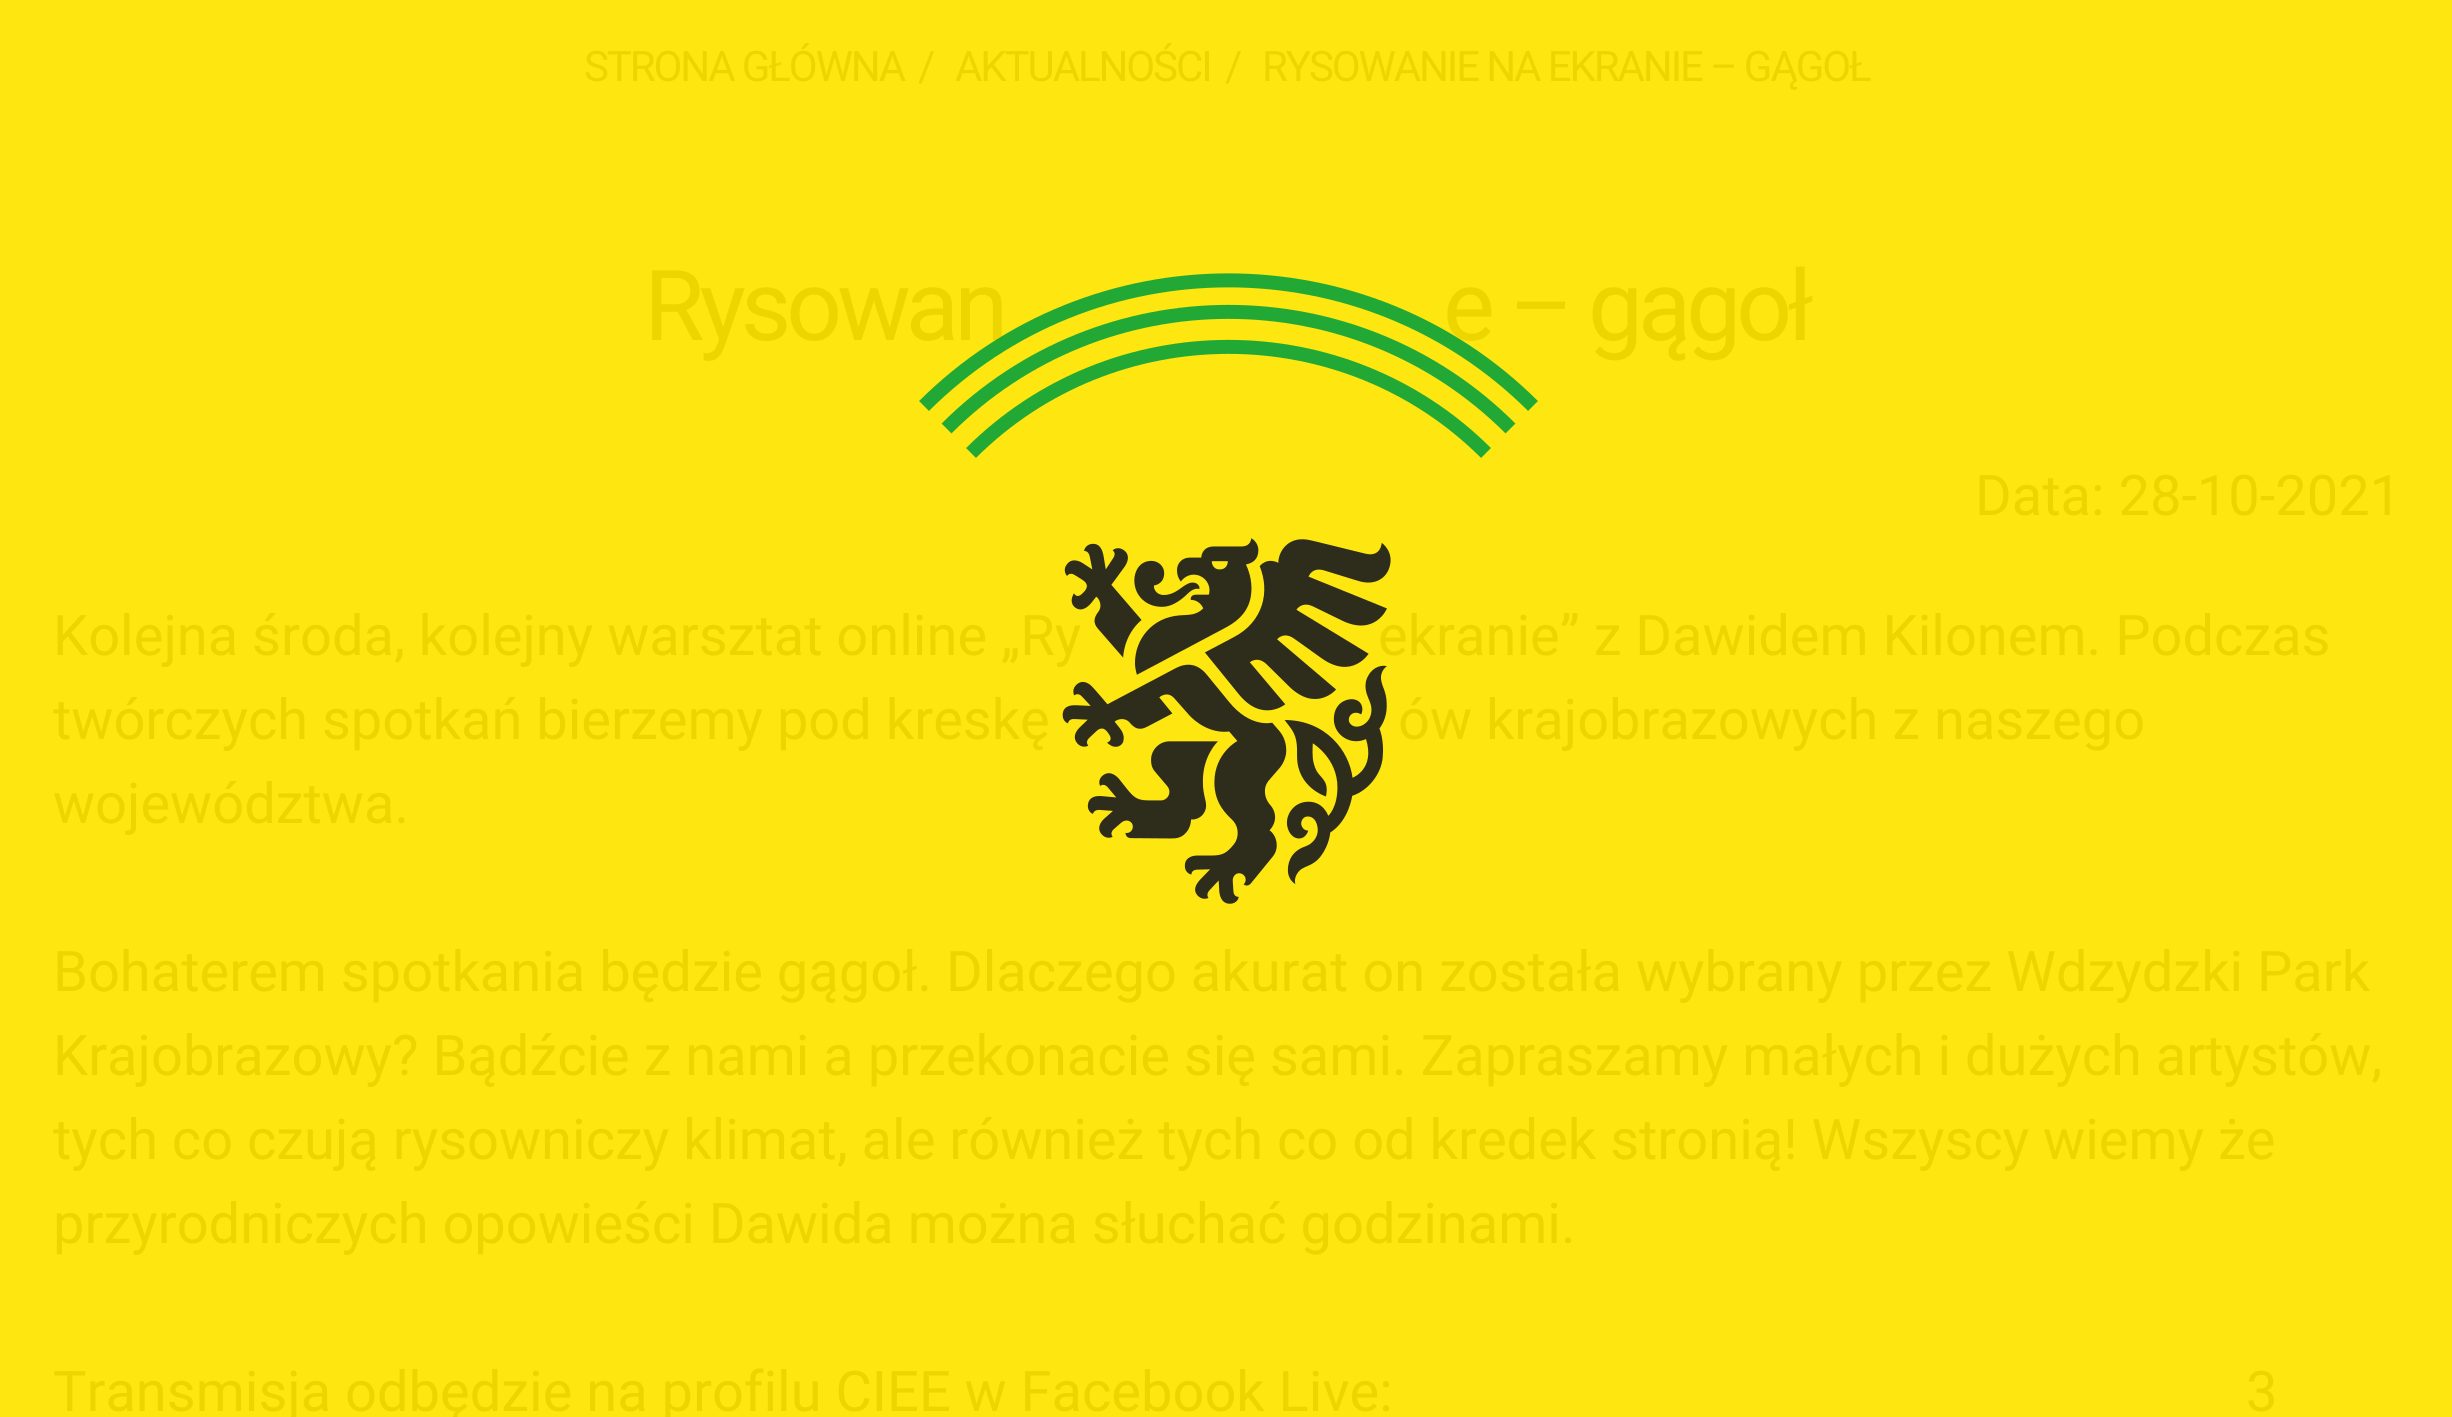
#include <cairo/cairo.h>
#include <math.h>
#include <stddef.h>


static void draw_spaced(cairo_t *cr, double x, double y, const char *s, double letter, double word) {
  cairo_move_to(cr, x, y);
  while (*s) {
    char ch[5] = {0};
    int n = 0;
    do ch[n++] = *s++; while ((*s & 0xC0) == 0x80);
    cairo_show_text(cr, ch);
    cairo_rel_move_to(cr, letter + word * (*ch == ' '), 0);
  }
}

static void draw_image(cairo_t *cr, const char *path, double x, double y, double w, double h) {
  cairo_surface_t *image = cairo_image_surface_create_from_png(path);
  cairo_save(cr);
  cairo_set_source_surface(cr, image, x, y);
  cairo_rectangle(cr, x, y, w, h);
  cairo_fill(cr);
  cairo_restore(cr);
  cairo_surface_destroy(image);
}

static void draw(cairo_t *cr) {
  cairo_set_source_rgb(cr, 254 / 255.0, 230 / 255.0, 17 / 255.0);
  cairo_paint(cr);
  cairo_select_font_face(cr, "Roboto", CAIRO_FONT_SLANT_NORMAL, CAIRO_FONT_WEIGHT_NORMAL);
  cairo_set_font_size(cr, 42);
  cairo_set_source_rgb(cr, 237 / 255.0, 213 / 255.0, 0);
  draw_spaced(cr, 584, 81, "STRONA GŁÓWNA", -2.1, 0);
  draw_spaced(cr, 918, 81, "/", -2.1, 0);
  draw_spaced(cr, 955, 81, "AKTUALNOŚCI", -2.1, 0);
  draw_spaced(cr, 1225, 81, "/", -2.1, 0);
  draw_spaced(cr, 1262, 81, "RYSOWANIE NA EKRANIE – GĄGOŁ", -2.1, 0);
  cairo_set_font_size(cr, 98);
  draw_spaced(cr, 644, 340, "Rysowan", -5, 0);
  draw_spaced(cr, 1443, 340, "e – gągoł", -5, 0);
  cairo_set_font_size(cr, 56);
  cairo_move_to(cr, 1975, 515);
  cairo_show_text(cr, "Data: 28-10-2021");
  cairo_move_to(cr, 53, 655);
  cairo_show_text(cr, "Kolejna środa, kolejny warsztat online „Ry");
  cairo_move_to(cr, 1378, 655);
  cairo_show_text(cr, "ekranie” z Dawidem Kilonem. Podczas");
  cairo_move_to(cr, 53, 739);
  cairo_show_text(cr, "twórczych spotkań bierzemy pod kreskę");
  cairo_move_to(cr, 1398, 739);
  cairo_show_text(cr, "ów krajobrazowych z naszego");
  cairo_move_to(cr, 53, 823);
  cairo_show_text(cr, "województwa.");
  cairo_move_to(cr, 53, 991);
  cairo_show_text(cr, "Bohaterem spotkania będzie gągoł. Dlaczego akurat on została wybrany przez Wdzydzki Park");
  cairo_move_to(cr, 53, 1075);
  cairo_show_text(cr, "Krajobrazowy? Bądźcie z nami a przekonacie się sami. Zapraszamy małych i dużych artystów,");
  cairo_move_to(cr, 53, 1159);
  cairo_show_text(cr, "tych co czują rysowniczy klimat, ale również tych co od kredek stronią! Wszyscy wiemy że");
  cairo_move_to(cr, 53, 1243);
  cairo_show_text(cr, "przyrodniczych opowieści Dawida można słuchać godzinami.");
  cairo_move_to(cr, 53, 1411);
  cairo_show_text(cr, "Transmisja odbędzie na profilu CIEE w Facebook Live:");
  cairo_move_to(cr, 2246, 1411);
  cairo_show_text(cr, "3");
  cairo_new_path(cr);
  cairo_move_to(cr, 924, 406);
  cairo_curve_to(cr, 1092, 238.5, 1365, 238.5, 1533, 406);
  cairo_set_source_rgba(cr, 19 / 255.0, 165 / 255.0, 56 / 255.0, 0.93);
  cairo_set_line_width(cr, 14);
  cairo_stroke(cr);
  cairo_new_path(cr);
  cairo_move_to(cr, 946.5, 428.5);
  cairo_curve_to(cr, 1102, 273, 1355, 273, 1510.5, 428.5);
  cairo_stroke(cr);
  cairo_new_path(cr);
  cairo_move_to(cr, 971, 453);
  cairo_curve_to(cr, 1113, 311.5, 1344, 311.5, 1486, 453);
  cairo_stroke(cr);
  draw_image(cr, "images/1.png", 1062, 538, 329, 366);
}

int main(void) {
  cairo_surface_t *surface = cairo_image_surface_create(CAIRO_FORMAT_RGB24, 2452, 1417);
  cairo_t *cr = cairo_create(surface);
  cairo_font_options_t *options = cairo_font_options_create();
  cairo_font_options_set_hint_metrics(options, CAIRO_HINT_METRICS_OFF);
  cairo_font_options_set_hint_style(options, CAIRO_HINT_STYLE_NONE);
  cairo_set_font_options(cr, options);
  cairo_set_miter_limit(cr, 4);
  draw(cr);
  cairo_surface_write_to_png(surface, "out.png");
  cairo_font_options_destroy(options);
  cairo_destroy(cr);
  cairo_surface_destroy(surface);
  return 0;
}
